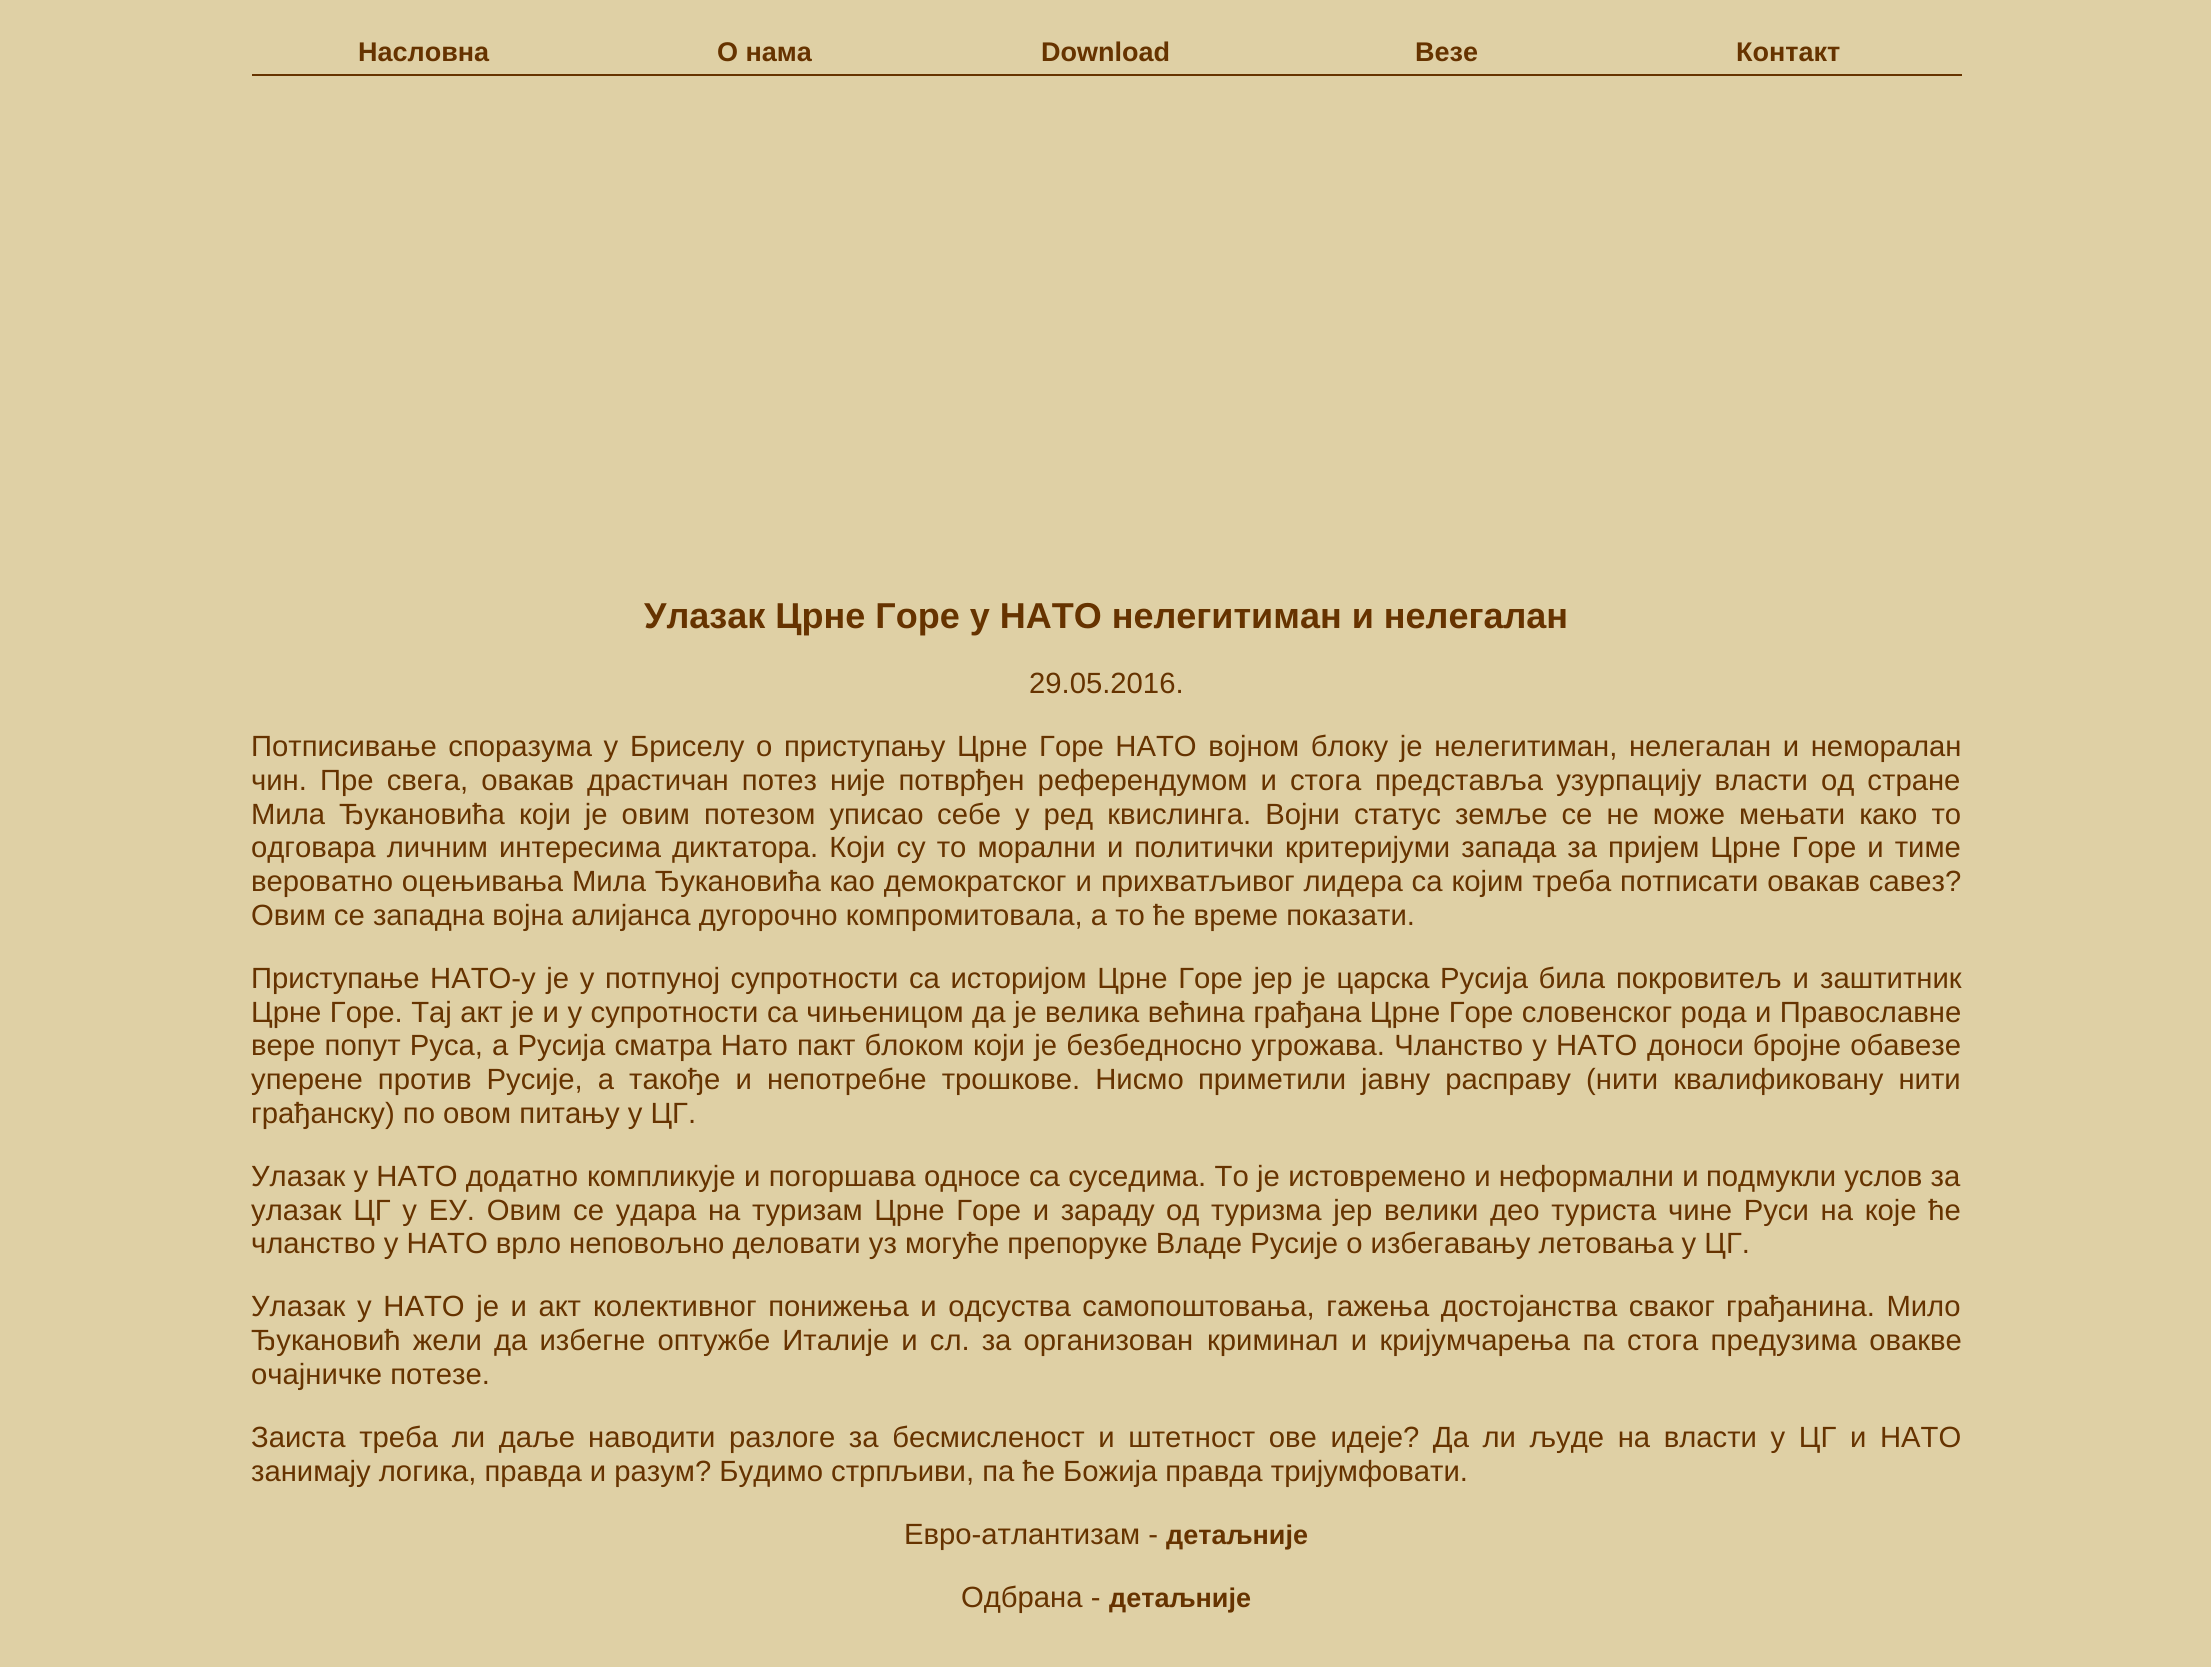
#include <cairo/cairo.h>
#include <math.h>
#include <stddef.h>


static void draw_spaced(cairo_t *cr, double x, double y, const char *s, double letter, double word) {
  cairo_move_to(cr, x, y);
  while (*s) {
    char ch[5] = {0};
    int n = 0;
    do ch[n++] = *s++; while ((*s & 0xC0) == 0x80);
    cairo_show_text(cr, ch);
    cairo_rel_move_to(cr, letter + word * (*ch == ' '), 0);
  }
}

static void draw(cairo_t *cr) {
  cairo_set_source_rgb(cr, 223 / 255.0, 208 / 255.0, 165 / 255.0);
  cairo_paint(cr);
  cairo_set_source_rgb(cr, 102 / 255.0, 51 / 255.0, 0);
  cairo_rectangle(cr, 252, 74, 1710, 2);
  cairo_fill(cr);
  cairo_select_font_face(cr, "Liberation Sans", CAIRO_FONT_SLANT_NORMAL, CAIRO_FONT_WEIGHT_BOLD);
  cairo_set_font_size(cr, 27);
  cairo_move_to(cr, 358, 61);
  cairo_show_text(cr, "Насловна");
  cairo_move_to(cr, 717, 61);
  cairo_show_text(cr, "О нама");
  cairo_move_to(cr, 1041, 61);
  cairo_show_text(cr, "Download");
  cairo_move_to(cr, 1415, 61);
  cairo_show_text(cr, "Везе");
  cairo_move_to(cr, 1736, 61);
  cairo_show_text(cr, "Контакт");
  cairo_set_font_size(cr, 36);
  cairo_move_to(cr, 644, 628);
  cairo_show_text(cr, "Улазак Црне Горе у НАТО нелегитиман и нелегалан");
  cairo_select_font_face(cr, "Liberation Sans", CAIRO_FONT_SLANT_NORMAL, CAIRO_FONT_WEIGHT_NORMAL);
  cairo_set_font_size(cr, 29.25);
  cairo_move_to(cr, 1029, 693);
  cairo_show_text(cr, "29.05.2016.");
  draw_spaced(cr, 251, 756, "Потписивање споразума у", 0, 3.5);
  draw_spaced(cr, 630, 756, "Бриселу о приступању Црне Горе НАТО војном блоку је нелегитиман, нелегалан и неморалан", 0, 3.5);
  draw_spaced(cr, 251, 790, "чин. Пре свега, овакав драстичан потез није потврђен референдумом и стога", 0, 5);
  draw_spaced(cr, 1375, 790, "представља узурпацију власти од стране", 0, 5);
  draw_spaced(cr, 251, 824, "Мила Ђукановића који је овим потезом уписао", 0, 5.9);
  draw_spaced(cr, 937, 824, "себе у ред квислинга. Војни статус земље се не може мењати како то", 0, 5.9);
  draw_spaced(cr, 251, 857, "одговара личним", 0, 2.9);
  draw_spaced(cr, 499, 857, "интересима диктатора. Који су то морални и политички критеријуми запада за", 0, 2.9);
  draw_spaced(cr, 1608, 857, "пријем Црне Горе и тиме", 0, 2.9);
  draw_spaced(cr, 251, 891, "вероватно оцењивања Мила Ђукановића као демократског и", 0, 0.75);
  draw_spaced(cr, 1101, 891, "прихватљивог лидера са којим треба потписати овакав савез?", 0, 0.75);
  cairo_move_to(cr, 251, 925);
  cairo_show_text(cr, "Овим се западна војна алијанса дугорочно компромитовала, а то ће време показати.");
  draw_spaced(cr, 251, 988, "Приступање НАТО-у је у", 0, 2.5);
  draw_spaced(cr, 605, 988, "потпуној супротности са историјом Црне Горе јер је царска Русија била", 0, 2.5);
  draw_spaced(cr, 1616, 988, "покровитељ и заштитник", 0, 3);
  draw_spaced(cr, 251, 1022, "Црне Горе. Тај акт је и у супротности са чињеницом да је", 0, 0.4);
  draw_spaced(cr, 1045, 1022, "велика већина грађана Црне Горе словенског рода и Православне", 0, 0.4);
  draw_spaced(cr, 251, 1055, "вере попут Руса,", 0, 1.1);
  draw_spaced(cr, 492, 1055, "а Русија сматра Нато пакт блоком који је безбедносно угрожава. Чланство у НАТО", 0, 1.1);
  draw_spaced(cr, 1647, 1055, "доноси бројне обавезе", 0, 1);
  draw_spaced(cr, 251, 1089, "уперене против Русије, а такође и непотребне трошкове. Нисмо", 0, 7);
  draw_spaced(cr, 1198, 1089, "приметили јавну расправу (нити квалификовану нити", 0, 7);
  cairo_move_to(cr, 251, 1123);
  cairo_show_text(cr, "грађанску) по овом питању у ЦГ.");
  cairo_move_to(cr, 251, 1186);
  cairo_show_text(cr, "Улазак у НАТО додатно");
  draw_spaced(cr, 587, 1186, "компликује и погоршава односе са суседима. То је истовремено и неформални и", 0, 0.25);
  cairo_move_to(cr, 1706, 1186);
  cairo_show_text(cr, "подмукли услов за");
  draw_spaced(cr, 251, 1220, "улазак ЦГ у ЕУ. Овим се удара на туризам Црне Горе и зараду", 0, 3.6);
  draw_spaced(cr, 1166, 1220, "од туризма јер велики део туриста чине Руси на које ће", 0, 3.6);
  cairo_move_to(cr, 251, 1253);
  cairo_show_text(cr, "чланство у НАТО врло неповољно деловати уз могуће препоруке Владе Русије о избегавању летовања у ЦГ.");
  draw_spaced(cr, 251, 1316, "Улазак у НАТО је и акт", 0, 3.5);
  draw_spaced(cr, 593, 1316, "колективног понижења и одсуства самопоштовања, гажења достојанства сваког", 0, 3.5);
  draw_spaced(cr, 1726, 1316, "грађанина. Мило", 0, 3.5);
  draw_spaced(cr, 251, 1350, "Ђукановић жели да избегне оптужбе Италије и сл. за организован", 0, 4);
  draw_spaced(cr, 1207, 1350, "криминал и кријумчарења па стога предузима овакве", 0, 4.25);
  cairo_move_to(cr, 251, 1384);
  cairo_show_text(cr, "очајничке потезе.");
  draw_spaced(cr, 251, 1447, "Заиста треба ли даље", 0, 5.5);
  draw_spaced(cr, 588, 1447, "наводити разлоге за бесмисленост и штетност ове идеје? Да ли људе на власти у ЦГ", 0, 5.5);
  draw_spaced(cr, 1850, 1447, "и НАТО", 0, 5.5);
  cairo_move_to(cr, 251, 1481);
  cairo_show_text(cr, "занимају логика, правда и разум? Будимо стрпљиви, па ће Божија правда тријумфовати.");
  cairo_move_to(cr, 904, 1544);
  cairo_show_text(cr, "Евро-атлантизам -");
  cairo_select_font_face(cr, "Liberation Sans", CAIRO_FONT_SLANT_NORMAL, CAIRO_FONT_WEIGHT_BOLD);
  cairo_set_font_size(cr, 27);
  cairo_move_to(cr, 1166, 1544);
  cairo_show_text(cr, "детаљније");
  cairo_select_font_face(cr, "Liberation Sans", CAIRO_FONT_SLANT_NORMAL, CAIRO_FONT_WEIGHT_NORMAL);
  cairo_set_font_size(cr, 29.25);
  cairo_move_to(cr, 961, 1607);
  cairo_show_text(cr, "Одбрана -");
  cairo_select_font_face(cr, "Liberation Sans", CAIRO_FONT_SLANT_NORMAL, CAIRO_FONT_WEIGHT_BOLD);
  cairo_set_font_size(cr, 27);
  cairo_move_to(cr, 1109, 1607);
  cairo_show_text(cr, "детаљније");
}

int main(void) {
  cairo_surface_t *surface = cairo_image_surface_create(CAIRO_FORMAT_RGB24, 2211, 1667);
  cairo_t *cr = cairo_create(surface);
  cairo_font_options_t *options = cairo_font_options_create();
  cairo_font_options_set_hint_metrics(options, CAIRO_HINT_METRICS_OFF);
  cairo_font_options_set_hint_style(options, CAIRO_HINT_STYLE_NONE);
  cairo_set_font_options(cr, options);
  cairo_set_miter_limit(cr, 4);
  draw(cr);
  cairo_surface_write_to_png(surface, "out.png");
  cairo_font_options_destroy(options);
  cairo_destroy(cr);
  cairo_surface_destroy(surface);
  return 0;
}
